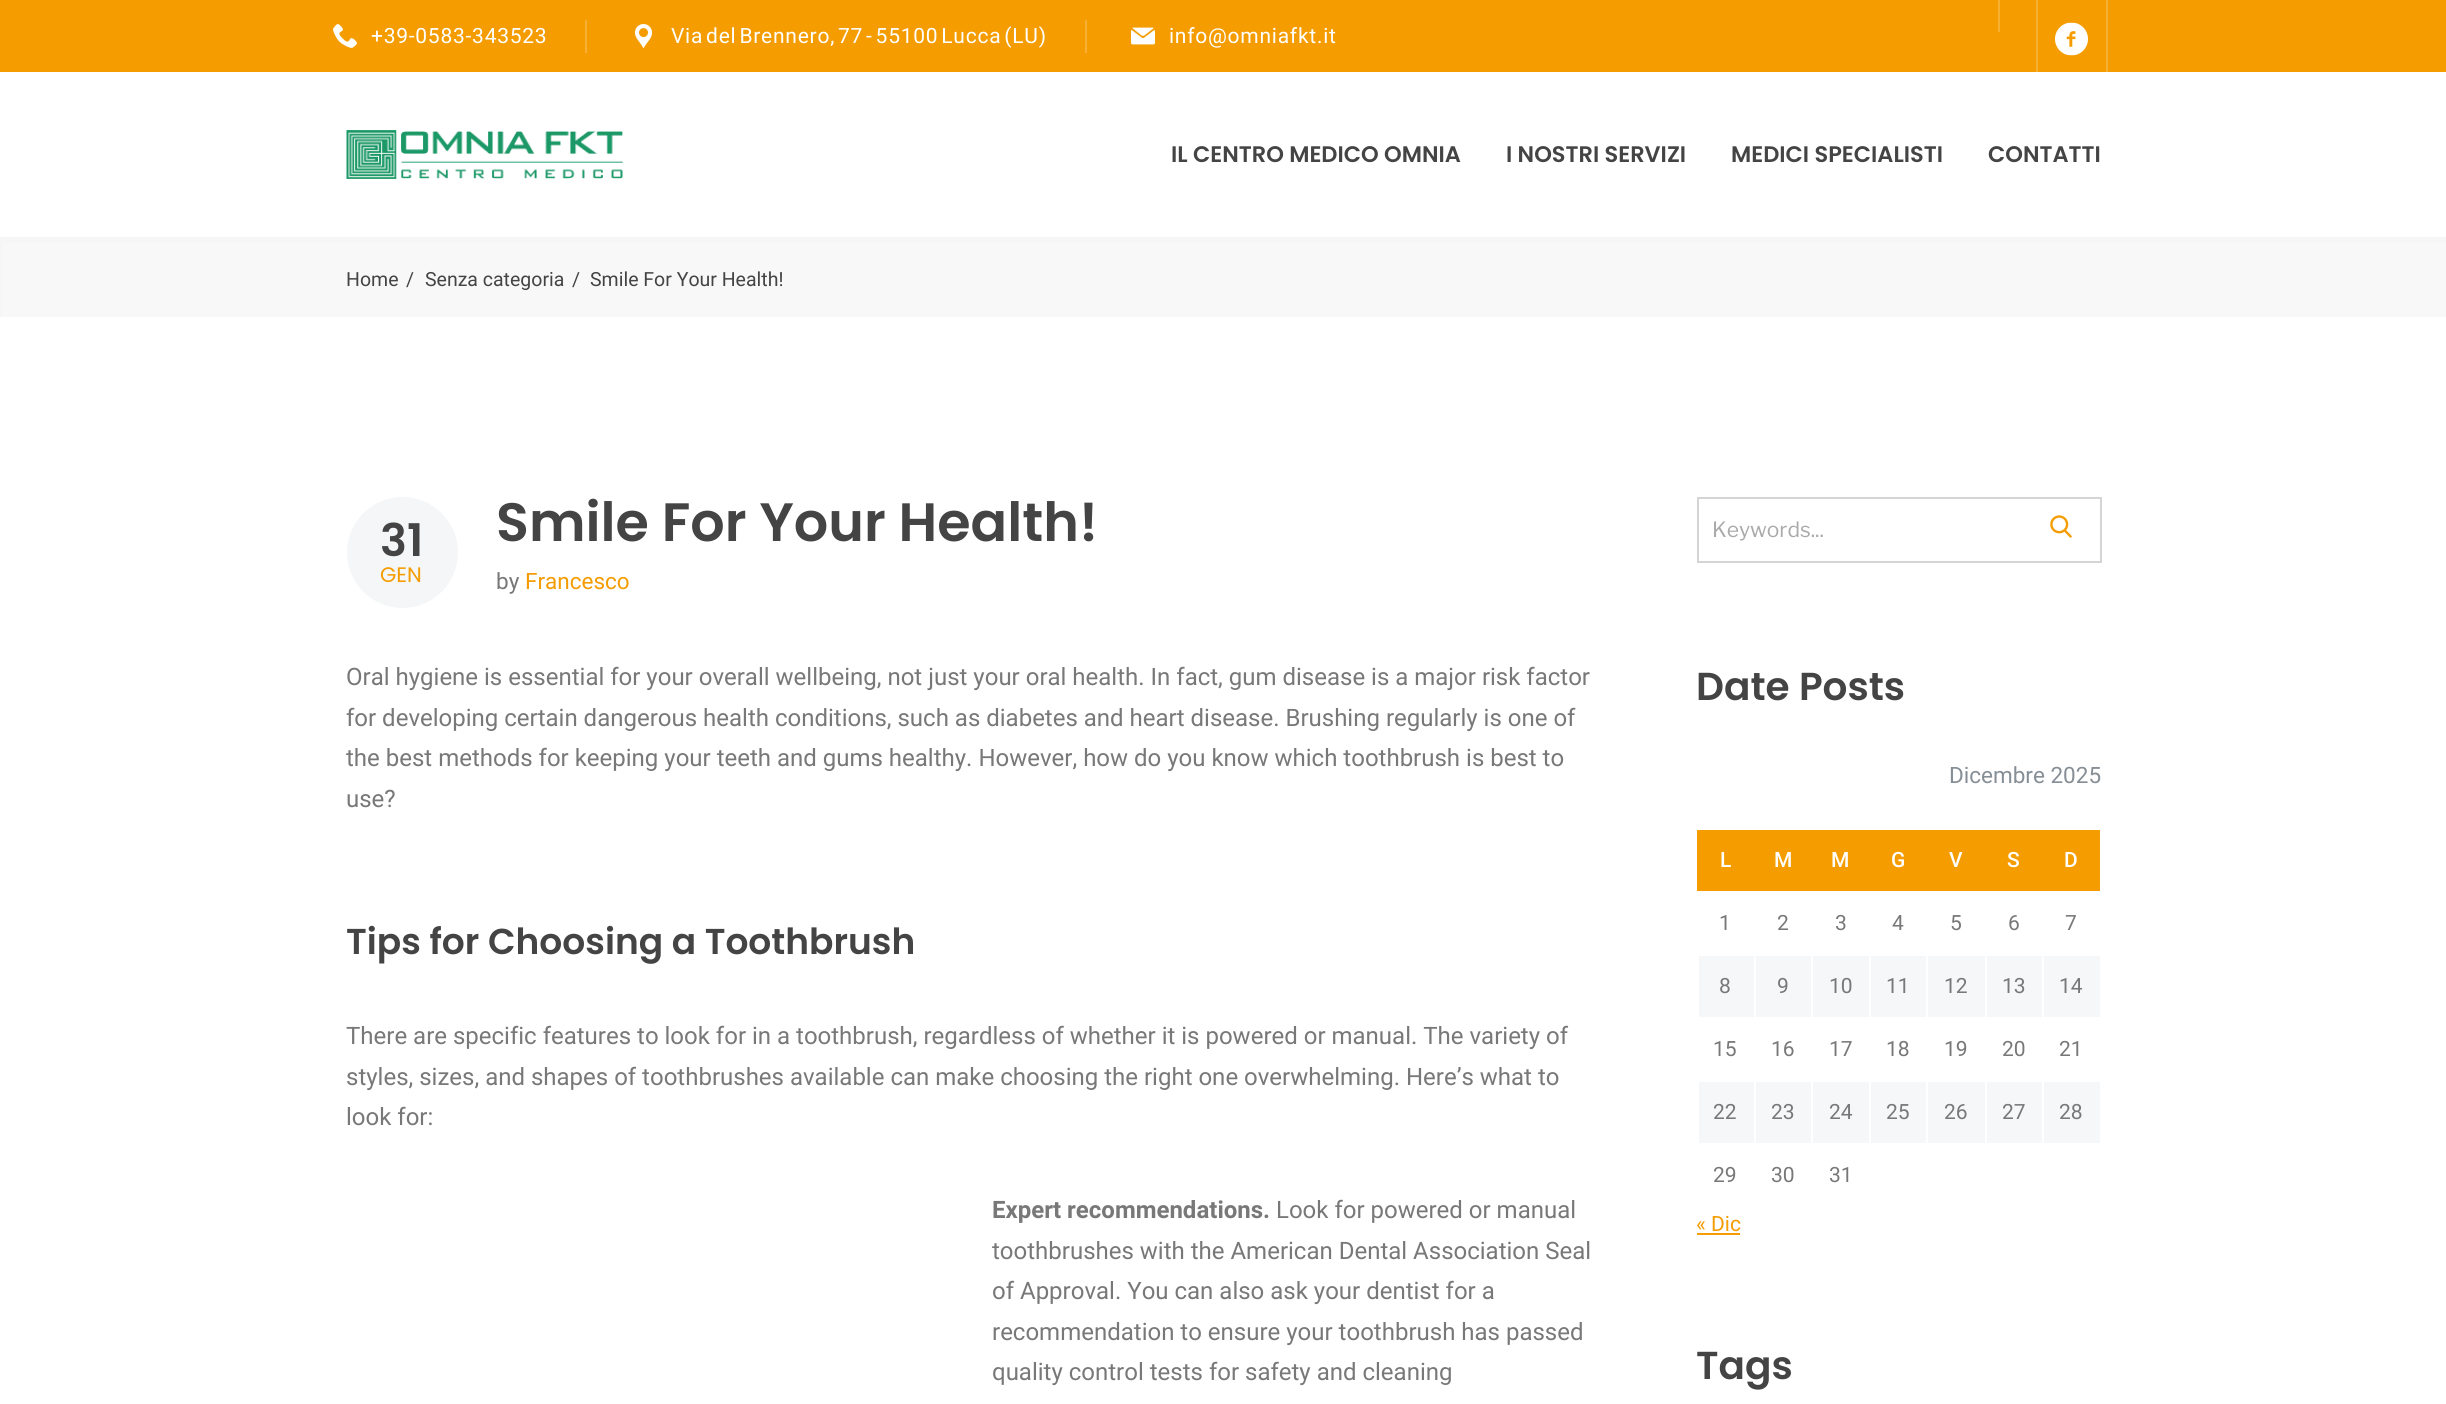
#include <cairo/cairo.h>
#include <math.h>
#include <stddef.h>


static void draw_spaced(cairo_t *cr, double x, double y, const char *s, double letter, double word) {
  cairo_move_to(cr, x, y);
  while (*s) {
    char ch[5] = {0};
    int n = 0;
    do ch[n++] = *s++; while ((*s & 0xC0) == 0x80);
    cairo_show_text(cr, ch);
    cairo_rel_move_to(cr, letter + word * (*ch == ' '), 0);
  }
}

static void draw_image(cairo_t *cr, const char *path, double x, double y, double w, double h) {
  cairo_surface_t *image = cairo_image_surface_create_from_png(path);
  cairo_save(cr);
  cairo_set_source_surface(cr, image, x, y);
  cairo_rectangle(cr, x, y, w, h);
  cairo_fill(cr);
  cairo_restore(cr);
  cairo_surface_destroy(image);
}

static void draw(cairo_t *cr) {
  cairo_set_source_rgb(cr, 244 / 255.0, 156 / 255.0, 0);
  cairo_paint(cr);
  draw_image(cr, "images/1.png", 333, 24, 24, 24);
  cairo_set_source_rgb(cr, 246 / 255.0, 176 / 255.0, 51 / 255.0);
  cairo_rectangle(cr, 585, 20, 2, 33);
  cairo_fill(cr);
  draw_image(cr, "images/2.png", 634, 24, 19, 24);
  cairo_rectangle(cr, 1085, 20, 2, 33);
  cairo_fill(cr);
  draw_image(cr, "images/3.png", 1131, 27, 24, 18);
  cairo_rectangle(cr, 1998, 0, 2, 32);
  cairo_fill(cr);
  cairo_rectangle(cr, 2036, 0, 2, 72);
  cairo_fill(cr);
  draw_image(cr, "images/4.png", 2055, 22, 33, 34);
  cairo_rectangle(cr, 2106, 0, 2, 72);
  cairo_fill(cr);
  cairo_set_source_rgb(cr, 1, 1, 1);
  cairo_rectangle(cr, 0, 72, 2446, 165);
  cairo_fill(cr);
  draw_image(cr, "images/5.png", 346, 130, 278, 49);
  cairo_rectangle(cr, 0, 317, 2446, 1087);
  cairo_fill(cr);
  cairo_set_source_rgb(cr, 248 / 255.0, 248 / 255.0, 248 / 255.0);
  cairo_rectangle(cr, 2, 243, 2444, 74);
  cairo_fill(cr);
  cairo_save(cr);
  cairo_rectangle(cr, 0, 237, 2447, 80);
  cairo_clip(cr);
  cairo_set_source_rgb(cr, 246 / 255.0, 246 / 255.0, 246 / 255.0);
  cairo_set_fill_rule(cr, CAIRO_FILL_RULE_EVEN_ODD);
  cairo_new_path(cr);
  cairo_move_to(cr, -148, 88);
  cairo_line_to(cr, 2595, 88);
  cairo_line_to(cr, 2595, 465);
  cairo_line_to(cr, -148, 465);
  cairo_close_path(cr);
  cairo_move_to(cr, 2, 243);
  cairo_line_to(cr, 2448, 243);
  cairo_line_to(cr, 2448, 322);
  cairo_line_to(cr, 2, 322);
  cairo_close_path(cr);
  cairo_fill(cr);
  cairo_restore(cr);
  cairo_set_source_rgb(cr, 245 / 255.0, 246 / 255.0, 247 / 255.0);
  cairo_arc(cr, 402.5, 552.5, 55.5, 0, 2 * M_PI);
  cairo_fill(cr);
  cairo_set_source_rgb(cr, 213 / 255.0, 213 / 255.0, 213 / 255.0);
  cairo_rectangle(cr, 1697, 497, 405, 2);
  cairo_fill(cr);
  cairo_rectangle(cr, 1697, 561, 327, 2);
  cairo_fill(cr);
  cairo_rectangle(cr, 1697, 497, 2, 66);
  cairo_fill(cr);
  cairo_rectangle(cr, 2100, 497, 2, 66);
  cairo_fill(cr);
  cairo_rectangle(cr, 2022, 561, 80, 2);
  cairo_fill(cr);
  draw_image(cr, "images/6.png", 2050, 515, 22, 23);
  cairo_set_source_rgb(cr, 244 / 255.0, 156 / 255.0, 0);
  cairo_rectangle(cr, 1697, 830, 403, 61);
  cairo_fill(cr);
  cairo_set_source_rgb(cr, 245 / 255.0, 247 / 255.0, 248 / 255.0);
  cairo_rectangle(cr, 1699, 956, 401, 61);
  cairo_fill(cr);
  cairo_set_source_rgb(cr, 1, 1, 1);
  cairo_rectangle(cr, 1754, 954, 2, 65);
  cairo_fill(cr);
  cairo_rectangle(cr, 1811, 954, 2, 65);
  cairo_fill(cr);
  cairo_rectangle(cr, 1869, 954, 2, 65);
  cairo_fill(cr);
  cairo_rectangle(cr, 1926, 954, 2, 65);
  cairo_fill(cr);
  cairo_rectangle(cr, 1985, 954, 2, 65);
  cairo_fill(cr);
  cairo_rectangle(cr, 2042, 954, 2, 65);
  cairo_fill(cr);
  cairo_set_source_rgb(cr, 245 / 255.0, 247 / 255.0, 248 / 255.0);
  cairo_rectangle(cr, 1699, 1082, 401, 61);
  cairo_fill(cr);
  cairo_set_source_rgb(cr, 1, 1, 1);
  cairo_rectangle(cr, 1754, 1080, 2, 65);
  cairo_fill(cr);
  cairo_rectangle(cr, 1811, 1080, 2, 65);
  cairo_fill(cr);
  cairo_rectangle(cr, 1869, 1080, 2, 65);
  cairo_fill(cr);
  cairo_rectangle(cr, 1926, 1080, 2, 65);
  cairo_fill(cr);
  cairo_rectangle(cr, 1985, 1080, 2, 65);
  cairo_fill(cr);
  cairo_rectangle(cr, 2042, 1080, 2, 65);
  cairo_fill(cr);
  cairo_set_source_rgb(cr, 244 / 255.0, 156 / 255.0, 0);
  cairo_rectangle(cr, 1697, 1233, 43, 2);
  cairo_fill(cr);
  cairo_select_font_face(cr, "Roboto", CAIRO_FONT_SLANT_NORMAL, CAIRO_FONT_WEIGHT_NORMAL);
  cairo_set_font_size(cr, 21);
  cairo_set_source_rgb(cr, 1, 1, 1);
  draw_spaced(cr, 371, 43, "+39-0583-343523", 0.75, 0);
  draw_spaced(cr, 671, 43, "Via del Brennero, 77 - 55100 Lucca (LU)", 0.75, -3);
  draw_spaced(cr, 1169, 43, "info@omniafkt.it", 0.75, 0);
  cairo_select_font_face(cr, "Poppins SemiBold", CAIRO_FONT_SLANT_NORMAL, CAIRO_FONT_WEIGHT_NORMAL);
  cairo_set_font_size(cr, 22.5);
  cairo_set_source_rgb(cr, 68 / 255.0, 68 / 255.0, 68 / 255.0);
  cairo_move_to(cr, 1171, 162);
  cairo_show_text(cr, "IL CENTRO MEDICO OMNIA");
  cairo_move_to(cr, 1506, 162);
  cairo_show_text(cr, "I NOSTRI SERVIZI");
  cairo_move_to(cr, 1731, 162);
  cairo_show_text(cr, "MEDICI SPECIALISTI");
  cairo_move_to(cr, 1988, 162);
  cairo_show_text(cr, "CONTATTI");
  cairo_select_font_face(cr, "Roboto", CAIRO_FONT_SLANT_NORMAL, CAIRO_FONT_WEIGHT_NORMAL);
  cairo_set_font_size(cr, 19.5);
  cairo_move_to(cr, 346, 286);
  cairo_show_text(cr, "Home");
  cairo_move_to(cr, 406, 286);
  cairo_show_text(cr, "/");
  cairo_move_to(cr, 425, 286);
  cairo_show_text(cr, "Senza categoria");
  cairo_move_to(cr, 572, 286);
  cairo_show_text(cr, "/");
  cairo_move_to(cr, 590, 286);
  cairo_show_text(cr, "Smile For Your Health!");
  cairo_select_font_face(cr, "Poppins SemiBold", CAIRO_FONT_SLANT_NORMAL, CAIRO_FONT_WEIGHT_NORMAL);
  cairo_set_font_size(cr, 45);
  cairo_move_to(cr, 380, 556);
  cairo_show_text(cr, "31");
  cairo_select_font_face(cr, "Poppins", CAIRO_FONT_SLANT_NORMAL, CAIRO_FONT_WEIGHT_NORMAL);
  cairo_set_font_size(cr, 21);
  cairo_set_source_rgb(cr, 244 / 255.0, 156 / 255.0, 0);
  cairo_move_to(cr, 380, 582);
  cairo_show_text(cr, "GEN");
  cairo_select_font_face(cr, "Poppins SemiBold", CAIRO_FONT_SLANT_NORMAL, CAIRO_FONT_WEIGHT_NORMAL);
  cairo_set_font_size(cr, 54);
  cairo_set_source_rgb(cr, 68 / 255.0, 68 / 255.0, 68 / 255.0);
  cairo_move_to(cr, 496, 541);
  cairo_show_text(cr, "Smile For Your Health!");
  cairo_select_font_face(cr, "Roboto", CAIRO_FONT_SLANT_NORMAL, CAIRO_FONT_WEIGHT_NORMAL);
  cairo_set_font_size(cr, 22.5);
  cairo_set_source_rgb(cr, 120 / 255.0, 120 / 255.0, 120 / 255.0);
  cairo_move_to(cr, 496, 589);
  cairo_show_text(cr, "by");
  cairo_set_source_rgb(cr, 244 / 255.0, 156 / 255.0, 0);
  cairo_move_to(cr, 525, 589);
  cairo_show_text(cr, "Francesco");
  cairo_set_font_size(cr, 24);
  cairo_set_source_rgb(cr, 120 / 255.0, 120 / 255.0, 120 / 255.0);
  cairo_move_to(cr, 346, 685);
  cairo_show_text(cr, "Oral hygiene is essential for your overall wellbeing, not just your oral health. In fact, gum disease is a major risk factor");
  cairo_move_to(cr, 346, 726);
  cairo_show_text(cr, "for developing certain dangerous health conditions, such as diabetes and heart disease. Brushing regularly is one of");
  cairo_move_to(cr, 346, 766);
  cairo_show_text(cr, "the best methods for keeping your teeth and gums healthy. However, how do you know which toothbrush is best to");
  cairo_move_to(cr, 346, 807);
  cairo_show_text(cr, "use?");
  cairo_select_font_face(cr, "Poppins SemiBold", CAIRO_FONT_SLANT_NORMAL, CAIRO_FONT_WEIGHT_NORMAL);
  cairo_set_font_size(cr, 36);
  cairo_set_source_rgb(cr, 68 / 255.0, 68 / 255.0, 68 / 255.0);
  cairo_move_to(cr, 346, 954);
  cairo_show_text(cr, "Tips for Choosing a Toothbrush");
  cairo_select_font_face(cr, "Roboto", CAIRO_FONT_SLANT_NORMAL, CAIRO_FONT_WEIGHT_NORMAL);
  cairo_set_font_size(cr, 24);
  cairo_set_source_rgb(cr, 120 / 255.0, 120 / 255.0, 120 / 255.0);
  cairo_move_to(cr, 346, 1044);
  cairo_show_text(cr, "There are specific features to look for in a toothbrush, regardless of whether it is powered or manual. The variety of");
  cairo_move_to(cr, 346, 1085);
  cairo_show_text(cr, "styles, sizes, and shapes of toothbrushes available can make choosing the right one overwhelming. Here’s what to");
  cairo_move_to(cr, 346, 1125);
  cairo_show_text(cr, "look for:");
  cairo_select_font_face(cr, "Roboto", CAIRO_FONT_SLANT_NORMAL, CAIRO_FONT_WEIGHT_BOLD);
  cairo_move_to(cr, 992, 1218);
  cairo_show_text(cr, "Expert recommendations.");
  cairo_select_font_face(cr, "Roboto", CAIRO_FONT_SLANT_NORMAL, CAIRO_FONT_WEIGHT_NORMAL);
  cairo_move_to(cr, 1276, 1218);
  cairo_show_text(cr, "Look for powered or manual");
  cairo_move_to(cr, 992, 1259);
  cairo_show_text(cr, "toothbrushes with the American Dental Association Seal");
  cairo_move_to(cr, 992, 1299);
  cairo_show_text(cr, "of Approval. You can also ask your dentist for a");
  cairo_move_to(cr, 992, 1340);
  cairo_show_text(cr, "recommendation to ensure your toothbrush has passed");
  cairo_move_to(cr, 992, 1380);
  cairo_show_text(cr, "quality control tests for safety and cleaning");
  cairo_select_font_face(cr, "Libre Franklin", CAIRO_FONT_SLANT_NORMAL, CAIRO_FONT_WEIGHT_NORMAL);
  cairo_set_font_size(cr, 21);
  cairo_set_source_rgb(cr, 169 / 255.0, 169 / 255.0, 169 / 255.0);
  cairo_move_to(cr, 1712, 537);
  cairo_show_text(cr, "Keywords...");
  cairo_select_font_face(cr, "Poppins SemiBold", CAIRO_FONT_SLANT_NORMAL, CAIRO_FONT_WEIGHT_NORMAL);
  cairo_set_font_size(cr, 39);
  cairo_set_source_rgb(cr, 68 / 255.0, 68 / 255.0, 68 / 255.0);
  cairo_move_to(cr, 1696, 700);
  cairo_show_text(cr, "Date Posts");
  cairo_select_font_face(cr, "Roboto", CAIRO_FONT_SLANT_NORMAL, CAIRO_FONT_WEIGHT_NORMAL);
  cairo_set_font_size(cr, 22.5);
  cairo_set_source_rgb(cr, 134 / 255.0, 142 / 255.0, 150 / 255.0);
  cairo_move_to(cr, 1949, 783);
  cairo_show_text(cr, "Dicembre 2025");
  cairo_select_font_face(cr, "Roboto Medium", CAIRO_FONT_SLANT_NORMAL, CAIRO_FONT_WEIGHT_NORMAL);
  cairo_set_font_size(cr, 21);
  cairo_set_source_rgb(cr, 1, 1, 1);
  cairo_move_to(cr, 1720, 867);
  cairo_show_text(cr, "L");
  cairo_move_to(cr, 1774, 867);
  cairo_show_text(cr, "M");
  cairo_move_to(cr, 1831, 867);
  cairo_show_text(cr, "M");
  cairo_move_to(cr, 1891, 867);
  cairo_show_text(cr, "G");
  cairo_move_to(cr, 1949, 867);
  cairo_show_text(cr, "V");
  cairo_move_to(cr, 2007, 867);
  cairo_show_text(cr, "S");
  cairo_move_to(cr, 2064, 867);
  cairo_show_text(cr, "D");
  cairo_select_font_face(cr, "Roboto", CAIRO_FONT_SLANT_NORMAL, CAIRO_FONT_WEIGHT_NORMAL);
  cairo_set_source_rgb(cr, 120 / 255.0, 120 / 255.0, 120 / 255.0);
  cairo_move_to(cr, 1719, 930);
  cairo_show_text(cr, "1");
  cairo_move_to(cr, 1777, 930);
  cairo_show_text(cr, "2");
  cairo_move_to(cr, 1835, 930);
  cairo_show_text(cr, "3");
  cairo_move_to(cr, 1892, 930);
  cairo_show_text(cr, "4");
  cairo_move_to(cr, 1950, 930);
  cairo_show_text(cr, "5");
  cairo_move_to(cr, 2008, 930);
  cairo_show_text(cr, "6");
  cairo_move_to(cr, 2065, 930);
  cairo_show_text(cr, "7");
  cairo_move_to(cr, 1719, 993);
  cairo_show_text(cr, "8");
  cairo_move_to(cr, 1777, 993);
  cairo_show_text(cr, "9");
  cairo_move_to(cr, 1829, 993);
  cairo_show_text(cr, "10");
  cairo_move_to(cr, 1886, 993);
  cairo_show_text(cr, "11");
  cairo_move_to(cr, 1944, 993);
  cairo_show_text(cr, "12");
  cairo_move_to(cr, 2002, 993);
  cairo_show_text(cr, "13");
  cairo_move_to(cr, 2059, 993);
  cairo_show_text(cr, "14");
  cairo_move_to(cr, 1713, 1056);
  cairo_show_text(cr, "15");
  cairo_move_to(cr, 1771, 1056);
  cairo_show_text(cr, "16");
  cairo_move_to(cr, 1829, 1056);
  cairo_show_text(cr, "17");
  cairo_move_to(cr, 1886, 1056);
  cairo_show_text(cr, "18");
  cairo_move_to(cr, 1944, 1056);
  cairo_show_text(cr, "19");
  cairo_move_to(cr, 2002, 1056);
  cairo_show_text(cr, "20");
  cairo_move_to(cr, 2059, 1056);
  cairo_show_text(cr, "21");
  cairo_move_to(cr, 1713, 1119);
  cairo_show_text(cr, "22");
  cairo_move_to(cr, 1771, 1119);
  cairo_show_text(cr, "23");
  cairo_move_to(cr, 1829, 1119);
  cairo_show_text(cr, "24");
  cairo_move_to(cr, 1886, 1119);
  cairo_show_text(cr, "25");
  cairo_move_to(cr, 1944, 1119);
  cairo_show_text(cr, "26");
  cairo_move_to(cr, 2002, 1119);
  cairo_show_text(cr, "27");
  cairo_move_to(cr, 2059, 1119);
  cairo_show_text(cr, "28");
  cairo_move_to(cr, 1713, 1182);
  cairo_show_text(cr, "29");
  cairo_move_to(cr, 1771, 1182);
  cairo_show_text(cr, "30");
  cairo_move_to(cr, 1829, 1182);
  cairo_show_text(cr, "31");
  cairo_set_source_rgb(cr, 244 / 255.0, 156 / 255.0, 0);
  cairo_move_to(cr, 1696, 1231);
  cairo_show_text(cr, "« Dic");
  cairo_select_font_face(cr, "Poppins SemiBold", CAIRO_FONT_SLANT_NORMAL, CAIRO_FONT_WEIGHT_NORMAL);
  cairo_set_font_size(cr, 39);
  cairo_set_source_rgb(cr, 68 / 255.0, 68 / 255.0, 68 / 255.0);
  cairo_move_to(cr, 1696, 1379);
  cairo_show_text(cr, "Tags");
}

int main(void) {
  cairo_surface_t *surface = cairo_image_surface_create(CAIRO_FORMAT_RGB24, 2446, 1404);
  cairo_t *cr = cairo_create(surface);
  cairo_font_options_t *options = cairo_font_options_create();
  cairo_font_options_set_hint_metrics(options, CAIRO_HINT_METRICS_OFF);
  cairo_font_options_set_hint_style(options, CAIRO_HINT_STYLE_NONE);
  cairo_set_font_options(cr, options);
  cairo_set_miter_limit(cr, 4);
  draw(cr);
  cairo_surface_write_to_png(surface, "out.png");
  cairo_font_options_destroy(options);
  cairo_destroy(cr);
  cairo_surface_destroy(surface);
  return 0;
}
